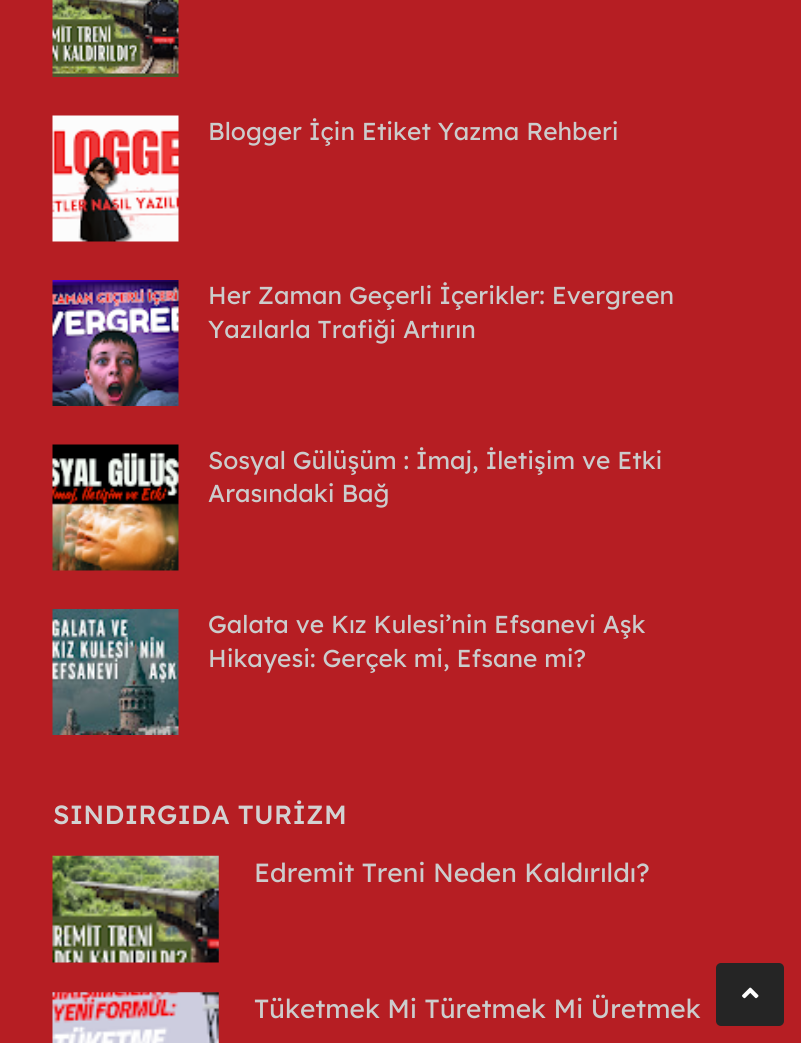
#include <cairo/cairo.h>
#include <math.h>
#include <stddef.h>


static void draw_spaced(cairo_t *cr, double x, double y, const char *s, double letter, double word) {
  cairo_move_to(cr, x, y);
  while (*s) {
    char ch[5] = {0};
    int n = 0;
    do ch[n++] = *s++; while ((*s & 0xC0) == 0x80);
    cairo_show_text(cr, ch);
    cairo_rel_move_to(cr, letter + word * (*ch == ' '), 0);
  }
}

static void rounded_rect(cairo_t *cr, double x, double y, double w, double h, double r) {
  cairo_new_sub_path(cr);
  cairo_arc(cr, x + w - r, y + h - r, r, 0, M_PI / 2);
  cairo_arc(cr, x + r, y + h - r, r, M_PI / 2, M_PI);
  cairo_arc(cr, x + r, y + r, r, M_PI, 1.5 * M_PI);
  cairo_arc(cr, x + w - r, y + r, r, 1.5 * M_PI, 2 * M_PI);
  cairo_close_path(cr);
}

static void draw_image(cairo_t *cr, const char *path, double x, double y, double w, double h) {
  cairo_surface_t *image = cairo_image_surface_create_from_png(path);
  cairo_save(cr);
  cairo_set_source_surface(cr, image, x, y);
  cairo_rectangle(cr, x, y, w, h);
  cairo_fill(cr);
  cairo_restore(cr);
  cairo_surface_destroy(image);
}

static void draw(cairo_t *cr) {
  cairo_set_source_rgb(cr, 182 / 255.0, 30 / 255.0, 35 / 255.0);
  cairo_paint(cr);
  draw_image(cr, "images/1.png", 52, 0, 127, 77);
  draw_image(cr, "images/2.png", 52, 115, 127, 127);
  draw_image(cr, "images/3.png", 52, 280, 127, 126);
  draw_image(cr, "images/4.png", 52, 444, 127, 127);
  draw_image(cr, "images/5.png", 52, 609, 127, 126);
  draw_image(cr, "images/6.png", 52, 855, 167, 108);
  draw_image(cr, "images/7.png", 52, 992, 167, 51);
  cairo_set_source_rgb(cr, 37 / 255.0, 37 / 255.0, 37 / 255.0);
  rounded_rect(cr, 716, 963, 68, 63, 5);
  cairo_fill(cr);
  draw_image(cr, "images/8.png", 742, 987, 17, 12);
  cairo_select_font_face(cr, "Lexend", CAIRO_FONT_SLANT_NORMAL, CAIRO_FONT_WEIGHT_NORMAL);
  cairo_set_font_size(cr, 24.5);
  cairo_set_source_rgb(cr, 204 / 255.0, 204 / 255.0, 204 / 255.0);
  cairo_move_to(cr, 208, 140);
  cairo_show_text(cr, "Blogger İçin Etiket Yazma Rehberi");
  cairo_move_to(cr, 208, 304);
  cairo_show_text(cr, "Her Zaman Geçerli İçerikler: Evergreen");
  cairo_move_to(cr, 208, 338);
  cairo_show_text(cr, "Yazılarla Trafiği Artırın");
  cairo_move_to(cr, 208, 469);
  cairo_show_text(cr, "Sosyal Gülüşüm : İmaj, İletişim ve Etki");
  cairo_move_to(cr, 208, 502);
  cairo_show_text(cr, "Arasındaki Bağ");
  cairo_move_to(cr, 208, 633);
  cairo_show_text(cr, "Galata ve Kız Kulesi’nin Efsanevi Aşk");
  cairo_move_to(cr, 208, 667);
  cairo_show_text(cr, "Hikayesi: Gerçek mi, Efsane mi?");
  cairo_select_font_face(cr, "Lexend Medium", CAIRO_FONT_SLANT_NORMAL, CAIRO_FONT_WEIGHT_NORMAL);
  cairo_set_font_size(cr, 26.25);
  cairo_set_source_rgb(cr, 210 / 255.0, 210 / 255.0, 210 / 255.0);
  draw_spaced(cr, 53, 824, "SINDIRGIDA TURİZM", 0.3, 0);
  cairo_select_font_face(cr, "Lexend", CAIRO_FONT_SLANT_NORMAL, CAIRO_FONT_WEIGHT_NORMAL);
  cairo_set_source_rgb(cr, 204 / 255.0, 204 / 255.0, 204 / 255.0);
  cairo_move_to(cr, 254, 882);
  cairo_show_text(cr, "Edremit Treni Neden Kaldırıldı?");
  cairo_move_to(cr, 254, 1018);
  cairo_show_text(cr, "Tüketmek Mi Türetmek Mi Üretmek");
}

int main(void) {
  cairo_surface_t *surface = cairo_image_surface_create(CAIRO_FORMAT_RGB24, 801, 1043);
  cairo_t *cr = cairo_create(surface);
  cairo_font_options_t *options = cairo_font_options_create();
  cairo_font_options_set_hint_metrics(options, CAIRO_HINT_METRICS_OFF);
  cairo_font_options_set_hint_style(options, CAIRO_HINT_STYLE_NONE);
  cairo_set_font_options(cr, options);
  cairo_set_miter_limit(cr, 4);
  draw(cr);
  cairo_surface_write_to_png(surface, "out.png");
  cairo_font_options_destroy(options);
  cairo_destroy(cr);
  cairo_surface_destroy(surface);
  return 0;
}
